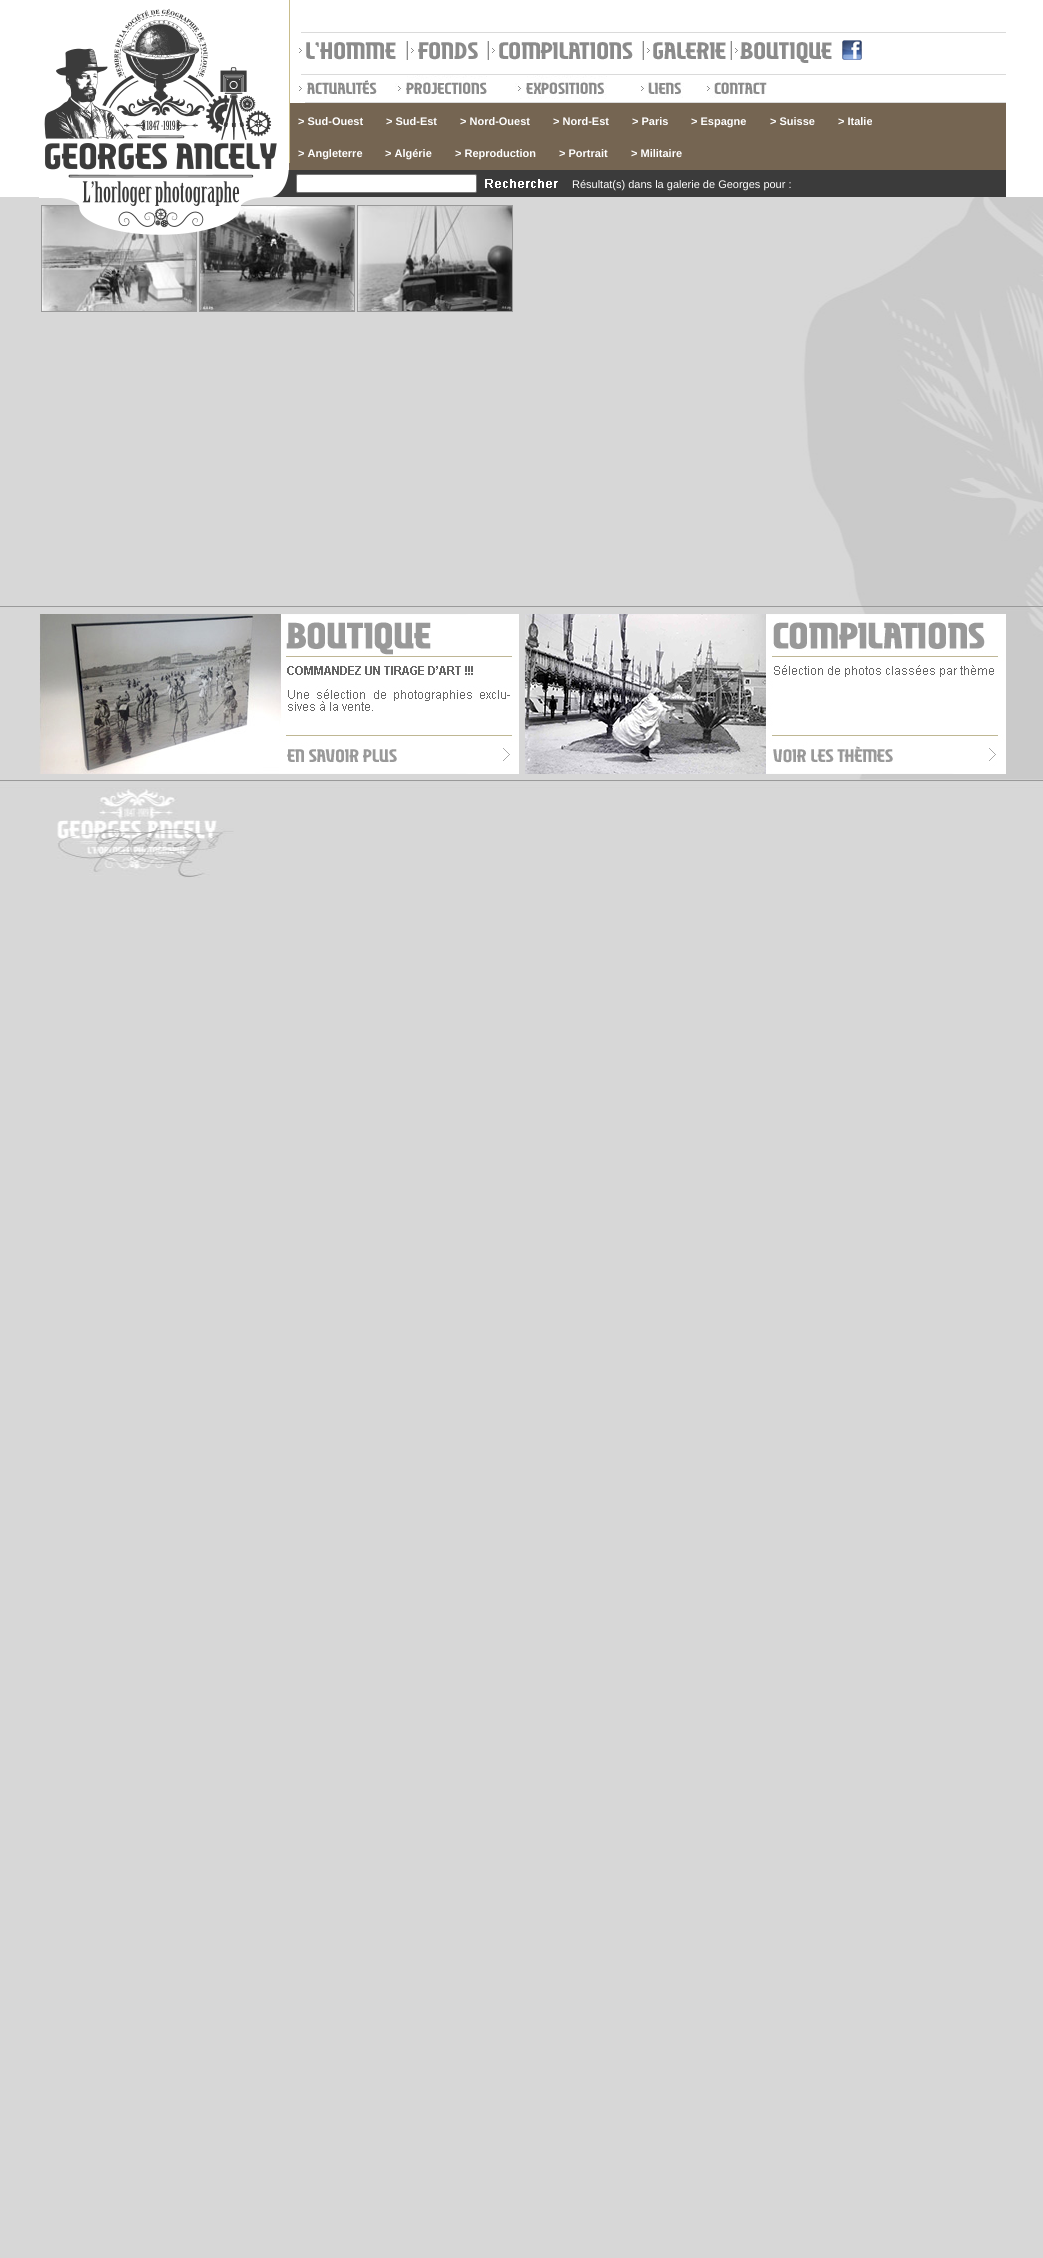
#include <cairo/cairo.h>
#include <math.h>
#include <stddef.h>


static void rounded_rect(cairo_t *cr, double x, double y, double w, double h, double r) {
  cairo_new_sub_path(cr);
  cairo_arc(cr, x + w - r, y + h - r, r, 0, M_PI / 2);
  cairo_arc(cr, x + r, y + h - r, r, M_PI / 2, M_PI);
  cairo_arc(cr, x + r, y + r, r, M_PI, 1.5 * M_PI);
  cairo_arc(cr, x + w - r, y + r, r, 1.5 * M_PI, 2 * M_PI);
  cairo_close_path(cr);
}

static void draw_image(cairo_t *cr, const char *path, double x, double y, double w, double h) {
  cairo_surface_t *image = cairo_image_surface_create_from_png(path);
  cairo_save(cr);
  cairo_set_source_surface(cr, image, x, y);
  cairo_rectangle(cr, x, y, w, h);
  cairo_fill(cr);
  cairo_restore(cr);
  cairo_surface_destroy(image);
}

static void draw(cairo_t *cr) {
  cairo_set_source_rgb(cr, 215 / 255.0, 215 / 255.0, 215 / 255.0);
  cairo_paint(cr);
  cairo_set_source_rgb(cr, 1, 1, 1);
  cairo_rectangle(cr, 0, 0, 1043, 197);
  cairo_fill(cr);
  draw_image(cr, "images/1.png", 288, 0, 718, 197);
  draw_image(cr, "images/15.png", 0, 197, 1043, 583);
  cairo_rectangle(cr, 41.5, 205.5, 155, 106);
  cairo_set_source_rgb(cr, 153 / 255.0, 153 / 255.0, 153 / 255.0);
  cairo_set_line_width(cr, 1);
  cairo_stroke(cr);
  draw_image(cr, "images/16.png", 42, 206, 154, 105);
  cairo_rectangle(cr, 199.5, 205.5, 155, 106);
  cairo_stroke(cr);
  draw_image(cr, "images/17.png", 200, 206, 154, 105);
  draw_image(cr, "images/2.png", 39, 8, 249, 227);
  draw_image(cr, "images/3.png", 299, 42, 97, 18);
  draw_image(cr, "images/4.png", 406, 41, 72, 19);
  draw_image(cr, "images/5.png", 487, 41, 146, 19);
  draw_image(cr, "images/6.png", 642, 41, 84, 19);
  draw_image(cr, "images/7.png", 730, 41, 102, 22);
  draw_image(cr, "images/8.png", 842, 40, 20, 20);
  draw_image(cr, "images/9.png", 299, 80, 78, 23);
  draw_image(cr, "images/10.png", 395, 75, 92, 19);
  draw_image(cr, "images/11.png", 515, 75, 92, 24);
  draw_image(cr, "images/12.png", 641, 82, 43, 16);
  draw_image(cr, "images/13.png", 706, 81, 61, 17);
  cairo_set_source_rgb(cr, 1, 1, 1);
  rounded_rect(cr, 296.5, 174.5, 180, 18, 1.5);
  cairo_fill_preserve(cr);
  cairo_set_source_rgb(cr, 118 / 255.0, 118 / 255.0, 118 / 255.0);
  cairo_stroke(cr);
  draw_image(cr, "images/14.png", 485, 179, 73, 9);
  cairo_rectangle(cr, 357.5, 205.5, 155, 106);
  cairo_set_source_rgb(cr, 153 / 255.0, 153 / 255.0, 153 / 255.0);
  cairo_stroke(cr);
  draw_image(cr, "images/18.png", 358, 206, 154, 105);
  draw_image(cr, "images/19.png", 39, 614, 480, 160);
  draw_image(cr, "images/20.png", 525, 614, 481, 160);
  draw_image(cr, "images/21.png", 0, 780, 1043, 98);
  cairo_select_font_face(cr, "Liberation Sans", CAIRO_FONT_SLANT_NORMAL, CAIRO_FONT_WEIGHT_BOLD);
  cairo_set_font_size(cr, 11);
  cairo_set_source_rgb(cr, 1, 1, 1);
  cairo_move_to(cr, 298, 125);
  cairo_show_text(cr, "> Sud-Ouest");
  cairo_move_to(cr, 386, 125);
  cairo_show_text(cr, "> Sud-Est");
  cairo_move_to(cr, 460, 125);
  cairo_show_text(cr, "> Nord-Ouest");
  cairo_move_to(cr, 553, 125);
  cairo_show_text(cr, "> Nord-Est");
  cairo_move_to(cr, 632, 125);
  cairo_show_text(cr, "> Paris");
  cairo_move_to(cr, 691, 125);
  cairo_show_text(cr, "> Espagne");
  cairo_move_to(cr, 770, 125);
  cairo_show_text(cr, "> Suisse");
  cairo_move_to(cr, 838, 125);
  cairo_show_text(cr, "> Italie");
  cairo_move_to(cr, 298, 157);
  cairo_show_text(cr, "> Angleterre");
  cairo_move_to(cr, 385, 157);
  cairo_show_text(cr, "> Algérie");
  cairo_move_to(cr, 455, 157);
  cairo_show_text(cr, "> Reproduction");
  cairo_move_to(cr, 559, 157);
  cairo_show_text(cr, "> Portrait");
  cairo_move_to(cr, 631, 157);
  cairo_show_text(cr, "> Militaire");
  cairo_select_font_face(cr, "Liberation Sans", CAIRO_FONT_SLANT_NORMAL, CAIRO_FONT_WEIGHT_NORMAL);
  cairo_move_to(cr, 572, 188);
  cairo_show_text(cr, "Résultat(s) dans la galerie de Georges pour :");
}

int main(void) {
  cairo_surface_t *surface = cairo_image_surface_create(CAIRO_FORMAT_RGB24, 1043, 2258);
  cairo_t *cr = cairo_create(surface);
  cairo_font_options_t *options = cairo_font_options_create();
  cairo_font_options_set_hint_metrics(options, CAIRO_HINT_METRICS_OFF);
  cairo_font_options_set_hint_style(options, CAIRO_HINT_STYLE_NONE);
  cairo_set_font_options(cr, options);
  cairo_set_miter_limit(cr, 4);
  draw(cr);
  cairo_surface_write_to_png(surface, "out.png");
  cairo_font_options_destroy(options);
  cairo_destroy(cr);
  cairo_surface_destroy(surface);
  return 0;
}
